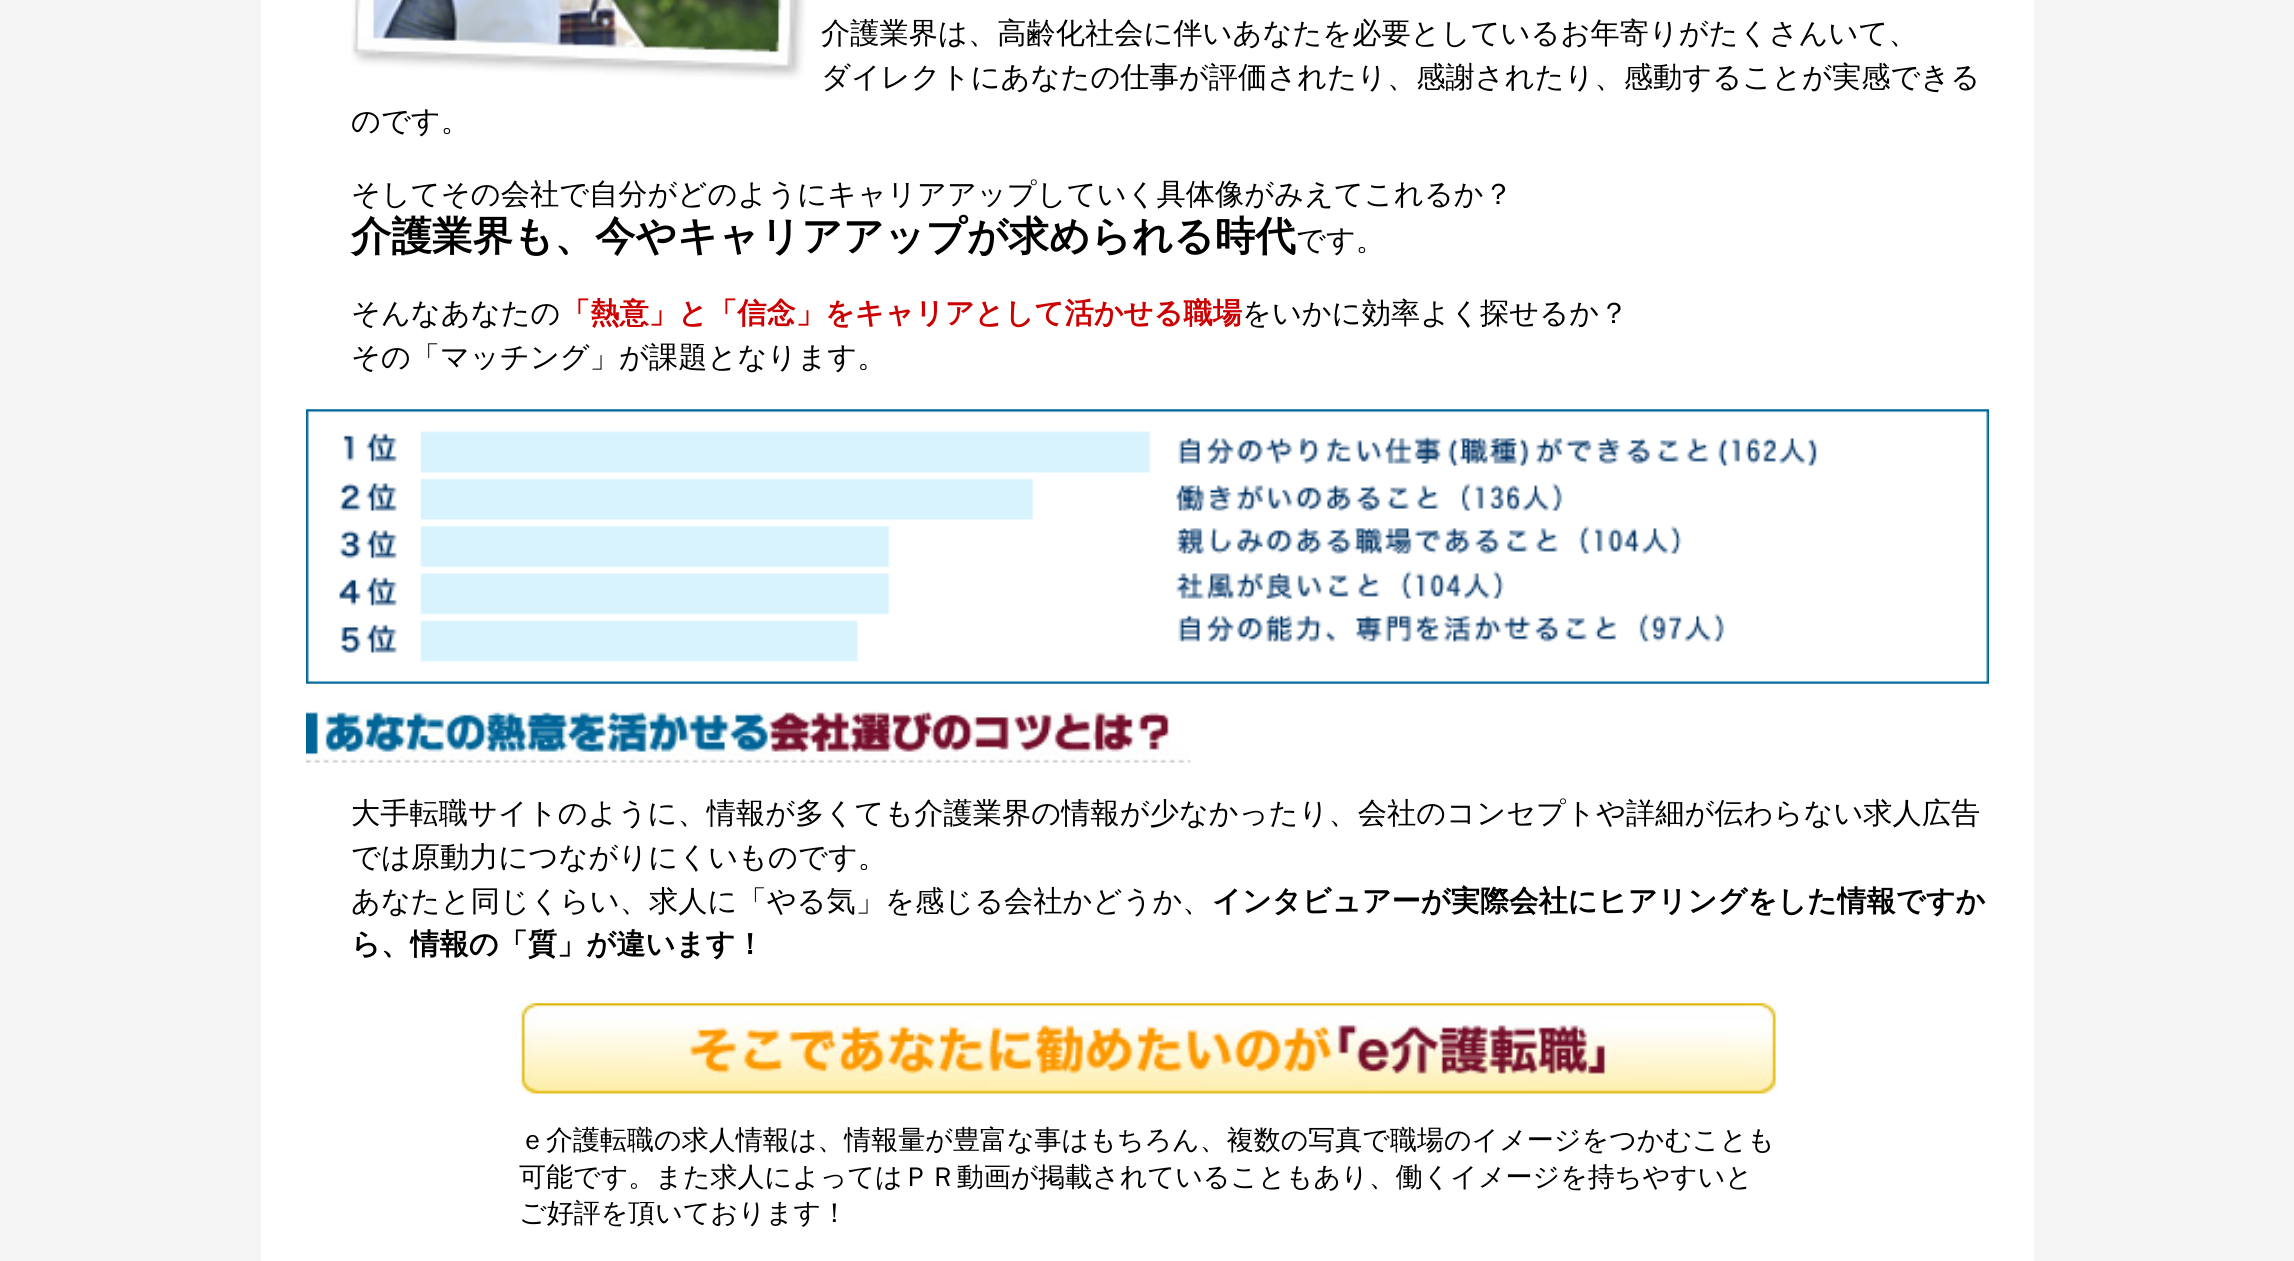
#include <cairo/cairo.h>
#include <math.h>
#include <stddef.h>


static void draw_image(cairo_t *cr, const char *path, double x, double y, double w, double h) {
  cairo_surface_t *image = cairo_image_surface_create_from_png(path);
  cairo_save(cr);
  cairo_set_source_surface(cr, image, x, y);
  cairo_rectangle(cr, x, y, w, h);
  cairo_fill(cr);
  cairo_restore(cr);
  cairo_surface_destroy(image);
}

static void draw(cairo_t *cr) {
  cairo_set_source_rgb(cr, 245 / 255.0, 245 / 255.0, 245 / 255.0);
  cairo_paint(cr);
  cairo_set_source_rgb(cr, 1, 1, 1);
  cairo_rectangle(cr, 261, 0, 1773, 1261);
  cairo_fill(cr);
  draw_image(cr, "images/1.png", 351, 0, 455, 80);
  draw_image(cr, "images/2.png", 306, 409, 1683, 275);
  draw_image(cr, "images/3.png", 306, 710, 885, 53);
  draw_image(cr, "images/4.png", 520, 1003, 1258, 91);
  cairo_select_font_face(cr, "WenQuanYi Zen Hei Medium", CAIRO_FONT_SLANT_NORMAL, CAIRO_FONT_WEIGHT_NORMAL);
  cairo_set_font_size(cr, 29.25);
  cairo_set_source_rgb(cr, 0, 0, 0);
  cairo_move_to(cr, 821, 43);
  cairo_show_text(cr, "介護業界は、高齢化社会に伴いあなたを必要としているお年寄りがたくさんいて、");
  cairo_move_to(cr, 821, 87);
  cairo_show_text(cr, "ダイレクトにあなたの仕事が評価されたり、感謝されたり、感動することが実感できる");
  cairo_move_to(cr, 351, 131);
  cairo_show_text(cr, "のです。");
  cairo_move_to(cr, 351, 204);
  cairo_show_text(cr, "そしてその会社で自分がどのようにキャリアアップしていく具体像がみえてこれるか？");
  cairo_select_font_face(cr, "WenQuanYi Zen Hei", CAIRO_FONT_SLANT_NORMAL, CAIRO_FONT_WEIGHT_BOLD);
  cairo_set_font_size(cr, 40.5);
  cairo_move_to(cr, 351, 250);
  cairo_show_text(cr, "介護業界も、今やキャリアアップが求められる時代");
  cairo_select_font_face(cr, "WenQuanYi Zen Hei Medium", CAIRO_FONT_SLANT_NORMAL, CAIRO_FONT_WEIGHT_NORMAL);
  cairo_set_font_size(cr, 29.25);
  cairo_move_to(cr, 1296, 250);
  cairo_show_text(cr, "です。");
  cairo_move_to(cr, 351, 323);
  cairo_show_text(cr, "そんなあなたの");
  cairo_select_font_face(cr, "WenQuanYi Zen Hei", CAIRO_FONT_SLANT_NORMAL, CAIRO_FONT_WEIGHT_BOLD);
  cairo_set_source_rgb(cr, 204 / 255.0, 0, 0);
  cairo_move_to(cr, 561, 323);
  cairo_show_text(cr, "「熱意」と「信念」をキャリアとして活かせる職場");
  cairo_select_font_face(cr, "WenQuanYi Zen Hei Medium", CAIRO_FONT_SLANT_NORMAL, CAIRO_FONT_WEIGHT_NORMAL);
  cairo_set_source_rgb(cr, 0, 0, 0);
  cairo_move_to(cr, 1242, 323);
  cairo_show_text(cr, "をいかに効率よく探せるか？");
  cairo_move_to(cr, 351, 367);
  cairo_show_text(cr, "その「マッチング」が課題となります。");
  cairo_move_to(cr, 351, 823);
  cairo_show_text(cr, "大手転職サイトのように、情報が多くても介護業界の情報が少なかったり、会社のコンセプトや詳細が伝わらない求人広告");
  cairo_move_to(cr, 351, 867);
  cairo_show_text(cr, "では原動力につながりにくいものです。");
  cairo_move_to(cr, 351, 911);
  cairo_show_text(cr, "あなたと同じくらい、求人に「やる気」を感じる会社かどうか、");
  cairo_select_font_face(cr, "WenQuanYi Zen Hei", CAIRO_FONT_SLANT_NORMAL, CAIRO_FONT_WEIGHT_BOLD);
  cairo_move_to(cr, 1212, 911);
  cairo_show_text(cr, "インタビュアーが実際会社にヒアリングをした情報ですか");
  cairo_move_to(cr, 351, 954);
  cairo_show_text(cr, "ら、情報の「質」が違います！");
  cairo_select_font_face(cr, "WenQuanYi Zen Hei Medium", CAIRO_FONT_SLANT_NORMAL, CAIRO_FONT_WEIGHT_NORMAL);
  cairo_set_font_size(cr, 27);
  cairo_move_to(cr, 519, 1149);
  cairo_show_text(cr, "ｅ介護転職の求人情報は、情報量が豊富な事はもちろん、複数の写真で職場のイメージをつかむことも");
  cairo_move_to(cr, 519, 1186);
  cairo_show_text(cr, "可能です。また求人によってはＰＲ動画が掲載されていることもあり、働くイメージを持ちやすいと");
  cairo_move_to(cr, 519, 1222);
  cairo_show_text(cr, "ご好評を頂いております！");
}

int main(void) {
  cairo_surface_t *surface = cairo_image_surface_create(CAIRO_FORMAT_RGB24, 2294, 1261);
  cairo_t *cr = cairo_create(surface);
  cairo_font_options_t *options = cairo_font_options_create();
  cairo_font_options_set_hint_metrics(options, CAIRO_HINT_METRICS_OFF);
  cairo_font_options_set_hint_style(options, CAIRO_HINT_STYLE_NONE);
  cairo_set_font_options(cr, options);
  cairo_set_miter_limit(cr, 4);
  draw(cr);
  cairo_surface_write_to_png(surface, "out.png");
  cairo_font_options_destroy(options);
  cairo_destroy(cr);
  cairo_surface_destroy(surface);
  return 0;
}
